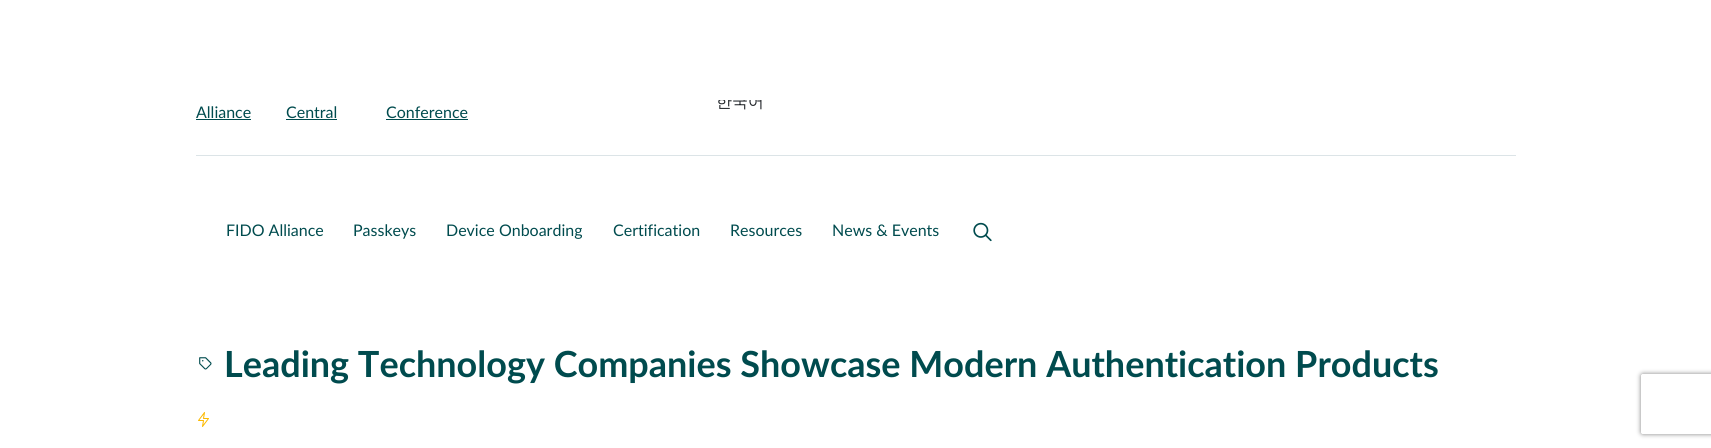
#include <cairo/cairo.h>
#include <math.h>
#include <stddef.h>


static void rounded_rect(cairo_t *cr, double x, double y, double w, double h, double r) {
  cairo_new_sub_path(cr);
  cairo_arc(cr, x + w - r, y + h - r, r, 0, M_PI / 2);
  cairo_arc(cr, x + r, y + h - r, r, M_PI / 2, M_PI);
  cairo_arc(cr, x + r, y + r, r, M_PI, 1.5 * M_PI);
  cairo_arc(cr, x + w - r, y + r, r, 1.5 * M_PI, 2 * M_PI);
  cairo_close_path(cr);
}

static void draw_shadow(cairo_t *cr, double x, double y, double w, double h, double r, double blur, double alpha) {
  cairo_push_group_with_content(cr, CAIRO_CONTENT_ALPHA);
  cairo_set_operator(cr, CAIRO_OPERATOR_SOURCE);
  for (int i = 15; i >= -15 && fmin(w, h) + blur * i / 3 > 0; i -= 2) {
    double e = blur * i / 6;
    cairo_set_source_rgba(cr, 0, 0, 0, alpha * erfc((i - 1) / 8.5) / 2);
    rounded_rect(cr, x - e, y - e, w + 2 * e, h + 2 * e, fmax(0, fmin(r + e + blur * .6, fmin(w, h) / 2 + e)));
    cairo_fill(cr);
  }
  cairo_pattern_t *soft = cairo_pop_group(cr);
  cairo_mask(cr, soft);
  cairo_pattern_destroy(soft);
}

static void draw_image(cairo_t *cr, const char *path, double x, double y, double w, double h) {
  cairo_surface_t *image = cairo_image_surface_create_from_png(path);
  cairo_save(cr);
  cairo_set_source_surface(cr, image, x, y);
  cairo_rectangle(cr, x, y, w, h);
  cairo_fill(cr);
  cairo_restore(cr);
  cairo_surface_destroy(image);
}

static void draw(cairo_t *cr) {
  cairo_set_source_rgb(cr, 1, 1, 1);
  cairo_paint(cr);
  cairo_set_source_rgb(cr, 0, 75 / 255.0, 78 / 255.0);
  cairo_rectangle(cr, 196, 119, 55, 1);
  cairo_fill(cr);
  cairo_rectangle(cr, 286, 119, 51, 1);
  cairo_fill(cr);
  cairo_rectangle(cr, 386, 119, 82, 1);
  cairo_fill(cr);
  cairo_set_source_rgb(cr, 220 / 255.0, 228 / 255.0, 231 / 255.0);
  cairo_rectangle(cr, 196, 155, 1320, 1);
  cairo_fill(cr);
  draw_image(cr, "images/1.png", 973, 222, 19, 20);
  draw_image(cr, "images/2.png", 198, 412, 11, 15);
  draw_image(cr, "images/3.png", 199, 357, 13, 13);
  cairo_save(cr);
  cairo_set_fill_rule(cr, CAIRO_FILL_RULE_EVEN_ODD);
  cairo_new_path(cr);
  cairo_move_to(cr, 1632, 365);
  cairo_line_to(cr, 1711, 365);
  cairo_line_to(cr, 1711, 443);
  cairo_line_to(cr, 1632, 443);
  cairo_close_path(cr);
  cairo_move_to(cr, 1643, 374);
  cairo_line_to(cr, 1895, 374);
  cairo_curve_to(cr, 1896, 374, 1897, 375, 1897, 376);
  cairo_line_to(cr, 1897, 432);
  cairo_curve_to(cr, 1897, 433, 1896, 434, 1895, 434);
  cairo_line_to(cr, 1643, 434);
  cairo_curve_to(cr, 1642, 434, 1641, 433, 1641, 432);
  cairo_line_to(cr, 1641, 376);
  cairo_curve_to(cr, 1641, 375, 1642, 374, 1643, 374);
  cairo_close_path(cr);
  cairo_clip(cr);
  cairo_set_source_rgb(cr, 128 / 255.0, 128 / 255.0, 128 / 255.0);
  draw_shadow(cr, 1641, 374, 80, 60, 2, 2.5, 1);
  cairo_restore(cr);
  cairo_select_font_face(cr, "WenQuanYi Zen Hei Medium", CAIRO_FONT_SLANT_NORMAL, CAIRO_FONT_WEIGHT_NORMAL);
  cairo_set_font_size(cr, 16);
  cairo_set_source_rgb(cr, 33 / 255.0, 37 / 255.0, 41 / 255.0);
  cairo_move_to(cr, 716, 107);
  cairo_show_text(cr, "한국어");
  cairo_select_font_face(cr, "Lato", CAIRO_FONT_SLANT_NORMAL, CAIRO_FONT_WEIGHT_NORMAL);
  cairo_set_source_rgb(cr, 0, 75 / 255.0, 78 / 255.0);
  cairo_move_to(cr, 196, 118);
  cairo_show_text(cr, "Alliance");
  cairo_move_to(cr, 286, 118);
  cairo_show_text(cr, "Central");
  cairo_move_to(cr, 386, 118);
  cairo_show_text(cr, "Conference");
  cairo_move_to(cr, 226, 236);
  cairo_show_text(cr, "FIDO Alliance");
  cairo_move_to(cr, 353, 236);
  cairo_show_text(cr, "Passkeys");
  cairo_move_to(cr, 446, 236);
  cairo_show_text(cr, "Device Onboarding");
  cairo_move_to(cr, 613, 236);
  cairo_show_text(cr, "Certification");
  cairo_move_to(cr, 730, 236);
  cairo_show_text(cr, "Resources");
  cairo_move_to(cr, 832, 236);
  cairo_show_text(cr, "News & Events");
  cairo_set_source_rgb(cr, 1, 1, 1);
  cairo_rectangle(cr, 717, 95, 45, 5);
  cairo_fill(cr);
  cairo_select_font_face(cr, "Lato", CAIRO_FONT_SLANT_NORMAL, CAIRO_FONT_WEIGHT_BOLD);
  cairo_set_font_size(cr, 36);
  cairo_set_source_rgb(cr, 0, 75 / 255.0, 78 / 255.0);
  cairo_move_to(cr, 224, 377);
  cairo_show_text(cr, "Leading Technology Companies Showcase Modern Authentication Products");
}

int main(void) {
  cairo_surface_t *surface = cairo_image_surface_create(CAIRO_FORMAT_RGB24, 1711, 448);
  cairo_t *cr = cairo_create(surface);
  cairo_font_options_t *options = cairo_font_options_create();
  cairo_font_options_set_hint_metrics(options, CAIRO_HINT_METRICS_OFF);
  cairo_font_options_set_hint_style(options, CAIRO_HINT_STYLE_NONE);
  cairo_set_font_options(cr, options);
  cairo_set_miter_limit(cr, 4);
  draw(cr);
  cairo_surface_write_to_png(surface, "out.png");
  cairo_font_options_destroy(options);
  cairo_destroy(cr);
  cairo_surface_destroy(surface);
  return 0;
}
